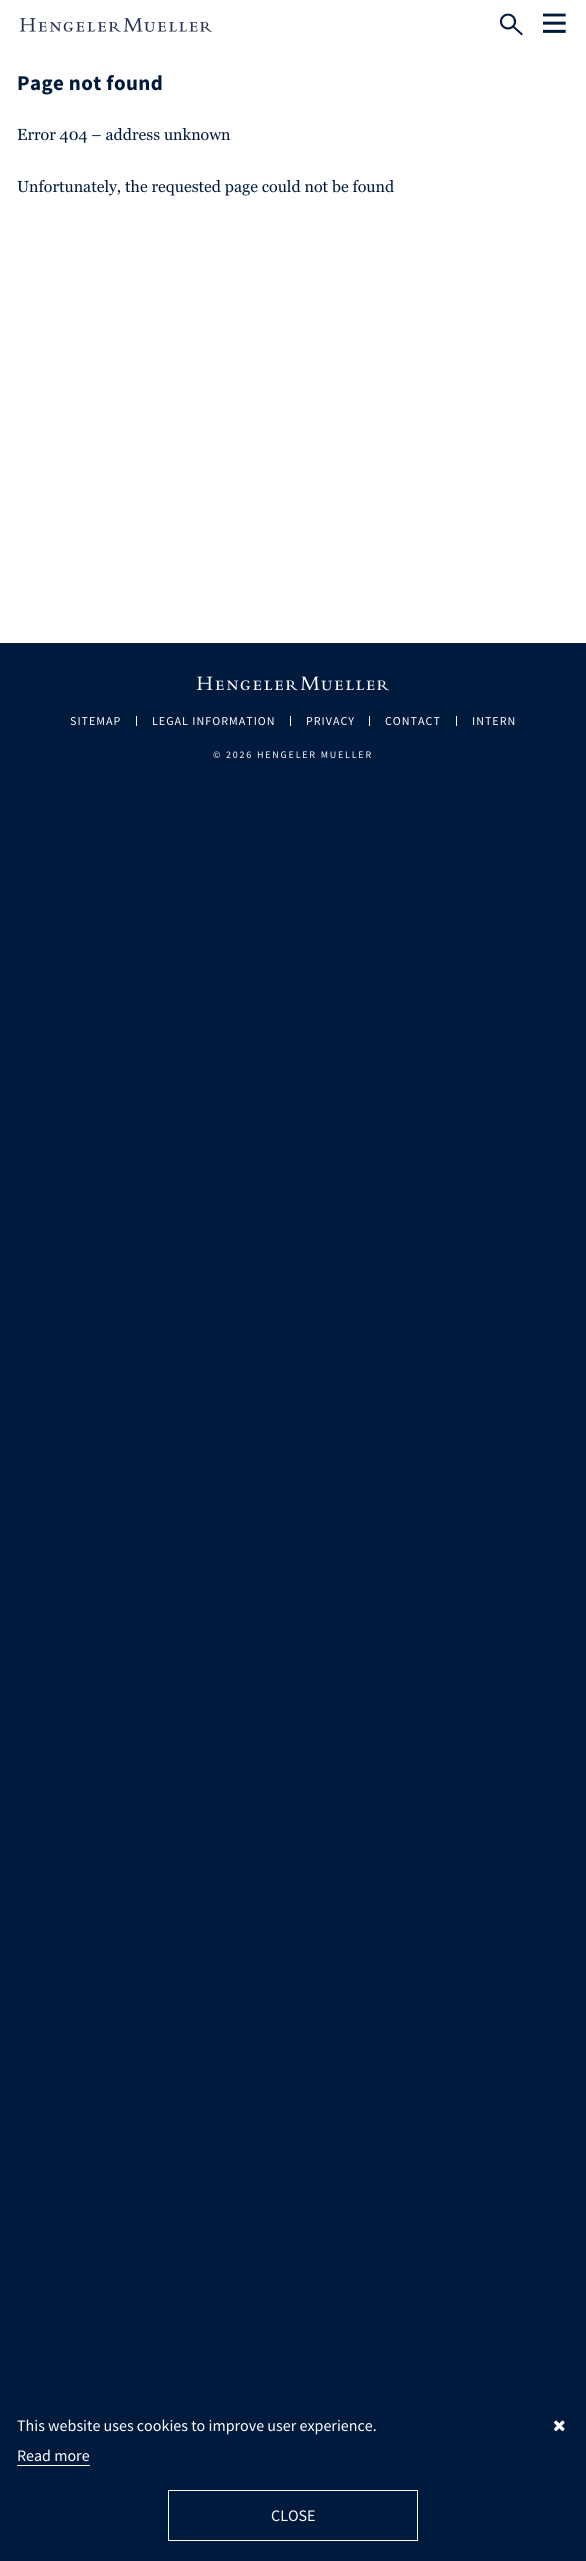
#include <cairo/cairo.h>
#include <math.h>
#include <stddef.h>


static void draw_spaced(cairo_t *cr, double x, double y, const char *s, double letter, double word) {
  cairo_move_to(cr, x, y);
  while (*s) {
    char ch[5] = {0};
    int n = 0;
    do ch[n++] = *s++; while ((*s & 0xC0) == 0x80);
    cairo_show_text(cr, ch);
    cairo_rel_move_to(cr, letter + word * (*ch == ' '), 0);
  }
}

static void draw_image(cairo_t *cr, const char *path, double x, double y, double w, double h) {
  cairo_surface_t *image = cairo_image_surface_create_from_png(path);
  cairo_save(cr);
  cairo_set_source_surface(cr, image, x, y);
  cairo_rectangle(cr, x, y, w, h);
  cairo_fill(cr);
  cairo_restore(cr);
  cairo_surface_destroy(image);
}

static void draw(cairo_t *cr) {
  cairo_set_source_rgb(cr, 0, 26 / 255.0, 61 / 255.0);
  cairo_paint(cr);
  cairo_set_source_rgb(cr, 1, 1, 1);
  cairo_rectangle(cr, 0, 0, 586, 643);
  cairo_fill(cr);
  draw_image(cr, "images/1.png", 19, 18, 194, 14);
  draw_image(cr, "images/2.png", 500, 13, 23, 23);
  draw_image(cr, "images/3.png", 543, 13, 23, 20);
  draw_image(cr, "images/4.png", 196, 676, 194, 15);
  cairo_rectangle(cr, 136, 716, 1, 10);
  cairo_fill(cr);
  cairo_rectangle(cr, 290, 716, 1, 10);
  cairo_fill(cr);
  cairo_rectangle(cr, 369, 716, 1, 10);
  cairo_fill(cr);
  cairo_rectangle(cr, 456, 716, 1, 10);
  cairo_fill(cr);
  cairo_rectangle(cr, 17, 2465, 73, 1);
  cairo_fill(cr);
  cairo_rectangle(cr, 168.5, 2490.5, 249, 50);
  cairo_set_line_width(cr, 1);
  cairo_stroke(cr);
  draw_image(cr, "images/5.png", 554, 2420, 11, 12);
  cairo_select_font_face(cr, "Source Sans Pro", CAIRO_FONT_SLANT_NORMAL, CAIRO_FONT_WEIGHT_BOLD);
  cairo_set_font_size(cr, 21);
  cairo_set_source_rgb(cr, 0, 26 / 255.0, 61 / 255.0);
  draw_spaced(cr, 17, 90, "Page not found", 0.4, 0);
  cairo_select_font_face(cr, "Georgia", CAIRO_FONT_SLANT_NORMAL, CAIRO_FONT_WEIGHT_NORMAL);
  cairo_set_font_size(cr, 16);
  cairo_move_to(cr, 17, 140);
  cairo_show_text(cr, "Error 404 – address unknown");
  cairo_move_to(cr, 17, 192);
  cairo_show_text(cr, "Unfortunately, the requested page could not be found");
  cairo_select_font_face(cr, "Source Sans Pro", CAIRO_FONT_SLANT_NORMAL, CAIRO_FONT_WEIGHT_NORMAL);
  cairo_set_font_size(cr, 12);
  cairo_set_source_rgb(cr, 1, 1, 1);
  draw_spaced(cr, 70, 725, "SITEMAP", 1, 0);
  draw_spaced(cr, 152, 725, "LEGAL INFORMATION", 1, 0);
  draw_spaced(cr, 306, 725, "PRIVACY", 1, 0);
  draw_spaced(cr, 385, 725, "CONTACT", 1, 0);
  draw_spaced(cr, 472, 725, "INTERN", 1, 0);
  cairo_set_font_size(cr, 10);
  draw_spaced(cr, 213, 758, "© 2026 HENGELER MUELLER", 1.8, 0);
  cairo_set_font_size(cr, 16);
  cairo_move_to(cr, 17, 2431);
  cairo_show_text(cr, "This website uses cookies to improve user experience.");
  cairo_move_to(cr, 17, 2461);
  cairo_show_text(cr, "Read more");
  cairo_move_to(cr, 271, 2521);
  cairo_show_text(cr, "CLOSE");
}

int main(void) {
  cairo_surface_t *surface = cairo_image_surface_create(CAIRO_FORMAT_RGB24, 586, 2561);
  cairo_t *cr = cairo_create(surface);
  cairo_font_options_t *options = cairo_font_options_create();
  cairo_font_options_set_hint_metrics(options, CAIRO_HINT_METRICS_OFF);
  cairo_font_options_set_hint_style(options, CAIRO_HINT_STYLE_NONE);
  cairo_set_font_options(cr, options);
  cairo_set_miter_limit(cr, 4);
  draw(cr);
  cairo_surface_write_to_png(surface, "out.png");
  cairo_font_options_destroy(options);
  cairo_destroy(cr);
  cairo_surface_destroy(surface);
  return 0;
}
